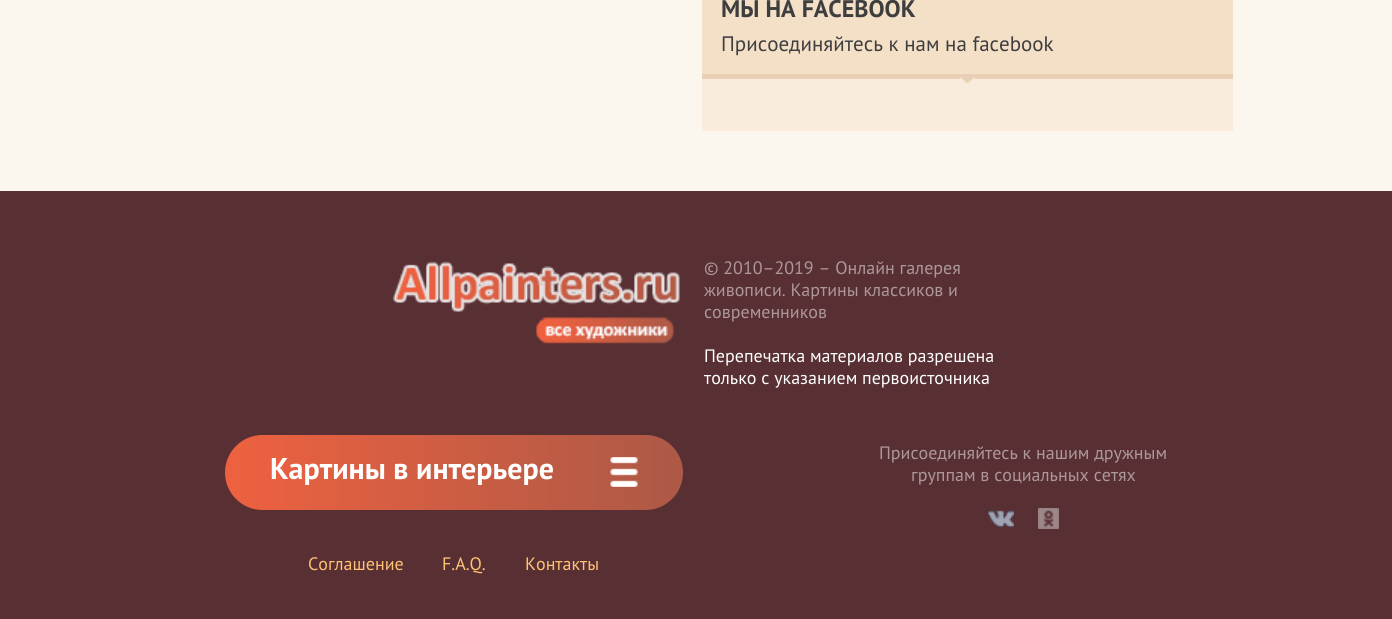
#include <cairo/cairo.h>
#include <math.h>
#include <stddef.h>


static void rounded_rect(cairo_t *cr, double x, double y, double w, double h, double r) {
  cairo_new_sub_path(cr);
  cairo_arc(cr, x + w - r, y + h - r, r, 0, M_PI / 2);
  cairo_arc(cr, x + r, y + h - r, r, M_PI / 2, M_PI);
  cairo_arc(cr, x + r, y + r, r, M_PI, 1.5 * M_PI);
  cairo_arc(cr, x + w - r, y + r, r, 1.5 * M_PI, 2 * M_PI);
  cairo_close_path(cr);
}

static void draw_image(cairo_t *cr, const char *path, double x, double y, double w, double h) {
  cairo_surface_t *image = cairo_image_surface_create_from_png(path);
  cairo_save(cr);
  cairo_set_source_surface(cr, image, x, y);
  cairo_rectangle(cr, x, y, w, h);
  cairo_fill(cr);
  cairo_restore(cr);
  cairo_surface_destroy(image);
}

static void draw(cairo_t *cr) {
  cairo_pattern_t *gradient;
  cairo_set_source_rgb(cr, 251 / 255.0, 247 / 255.0, 238 / 255.0);
  cairo_paint(cr);
  cairo_set_source_rgb(cr, 250 / 255.0, 236 / 255.0, 220 / 255.0);
  cairo_rectangle(cr, 702, 79, 531, 52);
  cairo_fill(cr);
  cairo_set_source_rgb(cr, 244 / 255.0, 223 / 255.0, 199 / 255.0);
  cairo_rectangle(cr, 702, 0, 531, 74);
  cairo_fill(cr);
  cairo_set_source_rgb(cr, 232 / 255.0, 207 / 255.0, 181 / 255.0);
  cairo_rectangle(cr, 702, 74, 531, 5);
  cairo_fill(cr);
  draw_image(cr, "images/1.png", 960, 77, 15, 7);
  cairo_set_source_rgb(cr, 88 / 255.0, 47 / 255.0, 51 / 255.0);
  cairo_rectangle(cr, 0, 191, 1392, 428);
  cairo_fill(cr);
  draw_image(cr, "images/2.png", 393, 261, 287, 83);
  gradient = cairo_pattern_create_linear(225, 473, 683, 473);
  cairo_pattern_add_color_stop_rgba(gradient, 0, 238 / 255.0, 97 / 255.0, 64 / 255.0, 1);
  cairo_pattern_add_color_stop_rgba(gradient, 1, 172 / 255.0, 89 / 255.0, 70 / 255.0, 1);
  cairo_set_source(cr, gradient);
  cairo_pattern_destroy(gradient);
  rounded_rect(cr, 225, 435, 458, 75, 37.5);
  cairo_fill(cr);
  draw_image(cr, "images/3.png", 610, 457, 28, 30);
  draw_image(cr, "images/4.png", 988, 510, 26, 18);
  draw_image(cr, "images/5.png", 1038, 508, 21, 21);
  cairo_select_font_face(cr, "PT Sans", CAIRO_FONT_SLANT_NORMAL, CAIRO_FONT_WEIGHT_BOLD);
  cairo_set_font_size(cr, 24);
  cairo_set_source_rgb(cr, 62 / 255.0, 62 / 255.0, 62 / 255.0);
  cairo_move_to(cr, 721, 17);
  cairo_show_text(cr, "МЫ НА FACEBOOK");
  cairo_select_font_face(cr, "PT Sans", CAIRO_FONT_SLANT_NORMAL, CAIRO_FONT_WEIGHT_NORMAL);
  cairo_set_font_size(cr, 21);
  cairo_move_to(cr, 721, 51);
  cairo_show_text(cr, "Присоединяйтесь к нам на facebook");
  cairo_set_font_size(cr, 18);
  cairo_set_source_rgb(cr, 172 / 255.0, 151 / 255.0, 153 / 255.0);
  cairo_move_to(cr, 704, 274);
  cairo_show_text(cr, "© 2010–2019 – Онлайн галерея");
  cairo_move_to(cr, 704, 296);
  cairo_show_text(cr, "живописи. Картины классиков и");
  cairo_move_to(cr, 704, 318);
  cairo_show_text(cr, "современников");
  cairo_set_source_rgb(cr, 1, 1, 1);
  cairo_move_to(cr, 704, 362);
  cairo_show_text(cr, "Перепечатка материалов разрешена");
  cairo_move_to(cr, 704, 384);
  cairo_show_text(cr, "только с указанием первоисточника");
  cairo_select_font_face(cr, "PT Sans", CAIRO_FONT_SLANT_NORMAL, CAIRO_FONT_WEIGHT_BOLD);
  cairo_set_font_size(cr, 30);
  cairo_move_to(cr, 270, 479);
  cairo_show_text(cr, "Картины в интерьере");
  cairo_select_font_face(cr, "PT Sans", CAIRO_FONT_SLANT_NORMAL, CAIRO_FONT_WEIGHT_NORMAL);
  cairo_set_font_size(cr, 18);
  cairo_set_source_rgb(cr, 254 / 255.0, 193 / 255.0, 117 / 255.0);
  cairo_move_to(cr, 308, 570);
  cairo_show_text(cr, "Соглашение");
  cairo_move_to(cr, 442, 570);
  cairo_show_text(cr, "F.A.Q.");
  cairo_move_to(cr, 525, 570);
  cairo_show_text(cr, "Контакты");
  cairo_set_source_rgb(cr, 172 / 255.0, 151 / 255.0, 153 / 255.0);
  cairo_move_to(cr, 879, 459);
  cairo_show_text(cr, "Присоединяйтесь к нашим дружным");
  cairo_move_to(cr, 911, 481);
  cairo_show_text(cr, "группам в социальных сетях");
}

int main(void) {
  cairo_surface_t *surface = cairo_image_surface_create(CAIRO_FORMAT_RGB24, 1392, 619);
  cairo_t *cr = cairo_create(surface);
  cairo_font_options_t *options = cairo_font_options_create();
  cairo_font_options_set_hint_metrics(options, CAIRO_HINT_METRICS_OFF);
  cairo_font_options_set_hint_style(options, CAIRO_HINT_STYLE_NONE);
  cairo_set_font_options(cr, options);
  cairo_set_miter_limit(cr, 4);
  draw(cr);
  cairo_surface_write_to_png(surface, "out.png");
  cairo_font_options_destroy(options);
  cairo_destroy(cr);
  cairo_surface_destroy(surface);
  return 0;
}
